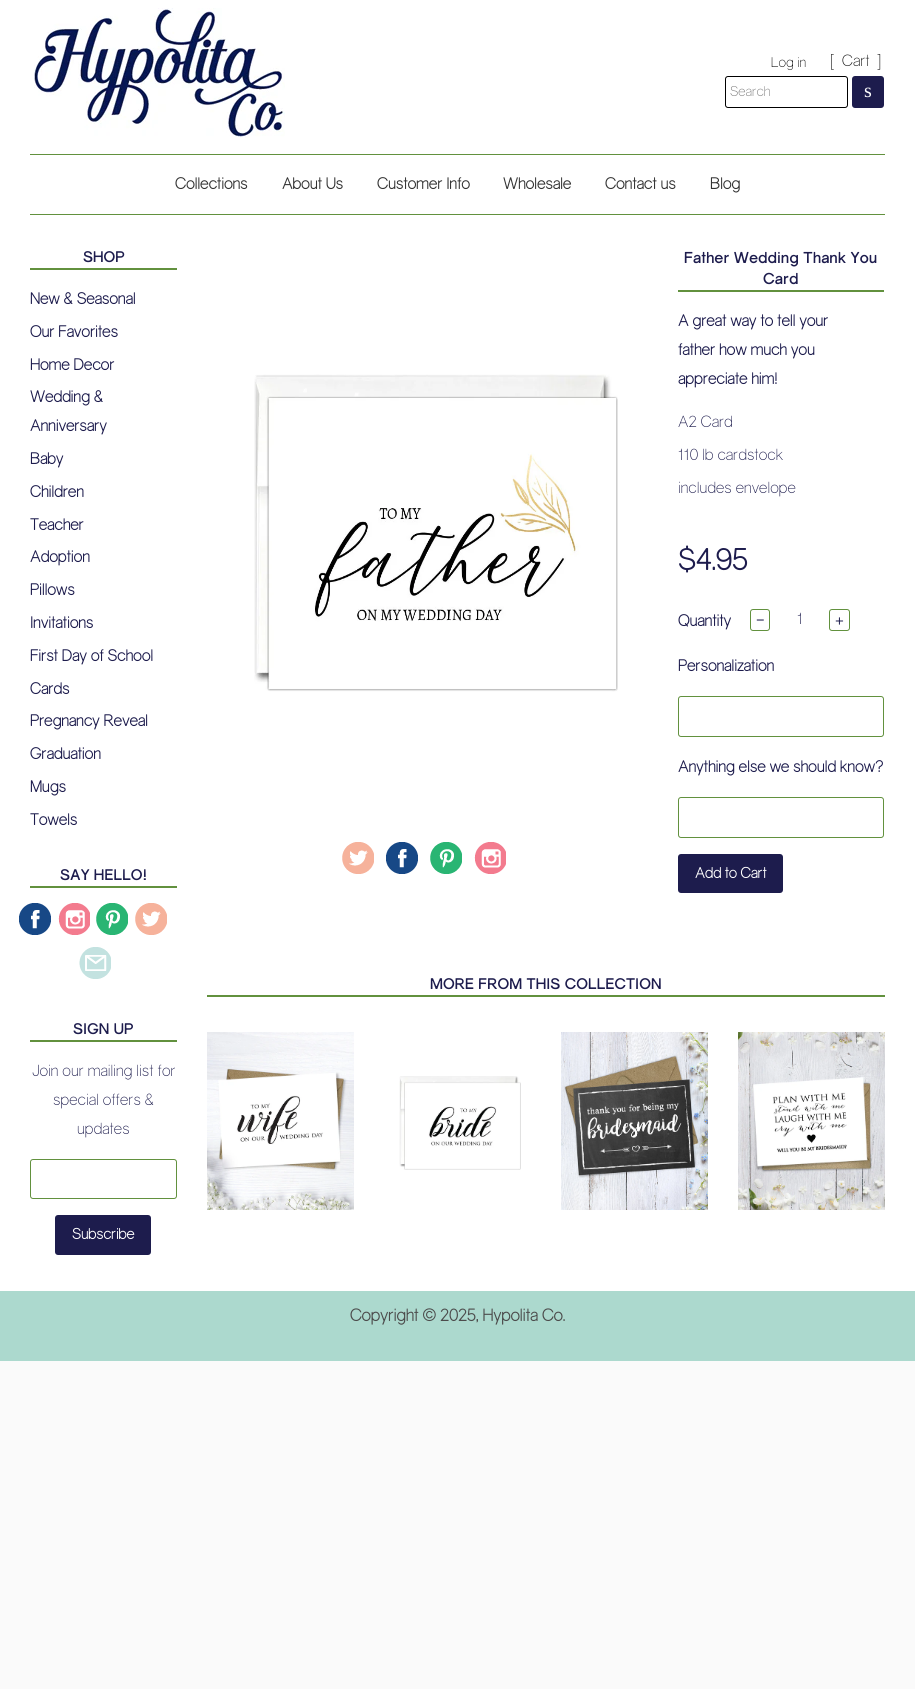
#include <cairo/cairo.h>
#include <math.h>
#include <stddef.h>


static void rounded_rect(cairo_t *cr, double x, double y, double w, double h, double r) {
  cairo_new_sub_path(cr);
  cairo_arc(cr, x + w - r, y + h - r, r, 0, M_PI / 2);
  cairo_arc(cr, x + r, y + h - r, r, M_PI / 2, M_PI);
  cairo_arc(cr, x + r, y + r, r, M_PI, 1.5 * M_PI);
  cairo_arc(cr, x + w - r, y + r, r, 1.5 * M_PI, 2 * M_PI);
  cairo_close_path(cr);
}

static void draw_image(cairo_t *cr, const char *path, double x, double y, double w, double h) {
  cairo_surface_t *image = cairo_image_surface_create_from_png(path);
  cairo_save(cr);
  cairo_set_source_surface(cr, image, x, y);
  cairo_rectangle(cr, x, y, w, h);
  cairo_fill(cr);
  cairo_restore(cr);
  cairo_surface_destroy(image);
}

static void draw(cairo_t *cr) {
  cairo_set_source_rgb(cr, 250 / 255.0, 250 / 255.0, 250 / 255.0);
  cairo_paint(cr);
  cairo_set_source_rgb(cr, 1, 1, 1);
  cairo_rectangle(cr, 0, 0, 915, 1291);
  cairo_fill(cr);
  draw_image(cr, "images/1.png", 34, 8, 251, 130);
  rounded_rect(cr, 725.5, 76.5, 122, 31, 2.5);
  cairo_set_source_rgb(cr, 0, 0, 0);
  cairo_set_line_width(cr, 1);
  cairo_stroke(cr);
  cairo_set_source_rgb(cr, 29 / 255.0, 28 / 255.0, 77 / 255.0);
  rounded_rect(cr, 852, 76, 32, 32, 3);
  cairo_fill(cr);
  cairo_set_source_rgb(cr, 98 / 255.0, 145 / 255.0, 62 / 255.0);
  cairo_rectangle(cr, 30, 154, 855, 1);
  cairo_fill(cr);
  cairo_rectangle(cr, 30, 214, 855, 1);
  cairo_fill(cr);
  cairo_rectangle(cr, 30, 268, 147, 2);
  cairo_fill(cr);
  cairo_rectangle(cr, 30, 886, 147, 2);
  cairo_fill(cr);
  draw_image(cr, "images/2.png", 19, 903, 32, 32);
  draw_image(cr, "images/3.png", 58, 903, 32, 32);
  draw_image(cr, "images/4.png", 96, 903, 32, 32);
  draw_image(cr, "images/5.png", 135, 903, 32, 32);
  draw_image(cr, "images/6.png", 79, 947, 32, 32);
  cairo_rectangle(cr, 30, 1040, 147, 2);
  cairo_fill(cr);
  rounded_rect(cr, 30.5, 1159.5, 146, 39, 2.5);
  cairo_stroke(cr);
  cairo_set_source_rgb(cr, 29 / 255.0, 28 / 255.0, 77 / 255.0);
  rounded_rect(cr, 55, 1215, 96, 40, 3);
  cairo_fill(cr);
  draw_image(cr, "images/7.png", 254, 374, 364, 318);
  draw_image(cr, "images/5.png", 342, 842, 32, 32);
  draw_image(cr, "images/2.png", 386, 842, 32, 32);
  draw_image(cr, "images/4.png", 430, 842, 32, 32);
  draw_image(cr, "images/3.png", 474, 842, 32, 32);
  cairo_set_source_rgb(cr, 98 / 255.0, 145 / 255.0, 62 / 255.0);
  cairo_rectangle(cr, 678, 290, 206, 2);
  cairo_fill(cr);
  rounded_rect(cr, 750.5, 609.5, 19, 21, 2.5);
  cairo_stroke(cr);
  rounded_rect(cr, 829.5, 609.5, 20, 21, 2.5);
  cairo_stroke(cr);
  rounded_rect(cr, 678.5, 696.5, 205, 40, 2.5);
  cairo_stroke(cr);
  rounded_rect(cr, 678.5, 797.5, 205, 40, 2.5);
  cairo_stroke(cr);
  cairo_set_source_rgb(cr, 29 / 255.0, 28 / 255.0, 77 / 255.0);
  rounded_rect(cr, 678, 854, 105, 39, 3);
  cairo_fill(cr);
  cairo_set_source_rgb(cr, 98 / 255.0, 145 / 255.0, 62 / 255.0);
  cairo_rectangle(cr, 207, 995, 678, 2);
  cairo_fill(cr);
  draw_image(cr, "images/8.png", 207, 1032, 147, 178);
  draw_image(cr, "images/9.png", 399, 1076, 122, 94);
  draw_image(cr, "images/10.png", 561, 1032, 147, 178);
  draw_image(cr, "images/11.png", 738, 1032, 147, 178);
  cairo_set_source_rgb(cr, 172 / 255.0, 217 / 255.0, 206 / 255.0);
  cairo_rectangle(cr, 0, 1291, 915, 70);
  cairo_fill(cr);
  cairo_select_font_face(cr, "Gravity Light", CAIRO_FONT_SLANT_NORMAL, CAIRO_FONT_WEIGHT_NORMAL);
  cairo_set_font_size(cr, 14);
  cairo_set_source_rgb(cr, 12 / 255.0, 12 / 255.0, 12 / 255.0);
  cairo_move_to(cr, 771, 67);
  cairo_show_text(cr, "Log in");
  cairo_set_font_size(cr, 17);
  cairo_move_to(cr, 830, 66);
  cairo_show_text(cr, "[");
  cairo_set_font_size(cr, 16);
  cairo_move_to(cr, 842, 66);
  cairo_show_text(cr, "Cart");
  cairo_set_font_size(cr, 17);
  cairo_move_to(cr, 877, 66);
  cairo_show_text(cr, "]");
  cairo_set_font_size(cr, 14);
  cairo_set_source_rgb(cr, 117 / 255.0, 117 / 255.0, 117 / 255.0);
  cairo_move_to(cr, 730, 96);
  cairo_show_text(cr, "Search");
  cairo_select_font_face(cr, "Liberation Serif", CAIRO_FONT_SLANT_NORMAL, CAIRO_FONT_WEIGHT_NORMAL);
  cairo_set_font_size(cr, 20);
  cairo_set_source_rgb(cr, 1, 1, 1);
  cairo_move_to(cr, 864, 97);
  cairo_show_text(cr, "s");
  cairo_select_font_face(cr, "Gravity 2", CAIRO_FONT_SLANT_NORMAL, CAIRO_FONT_WEIGHT_BOLD);
  cairo_set_font_size(cr, 16);
  cairo_set_source_rgb(cr, 51 / 255.0, 51 / 255.0, 51 / 255.0);
  cairo_move_to(cr, 175, 189);
  cairo_show_text(cr, "Collections");
  cairo_move_to(cr, 282, 189);
  cairo_show_text(cr, "About Us");
  cairo_move_to(cr, 377, 189);
  cairo_show_text(cr, "Customer Info");
  cairo_move_to(cr, 503, 189);
  cairo_show_text(cr, "Wholesale");
  cairo_move_to(cr, 605, 189);
  cairo_show_text(cr, "Contact us");
  cairo_move_to(cr, 710, 189);
  cairo_show_text(cr, "Blog");
  cairo_select_font_face(cr, "Gravity", CAIRO_FONT_SLANT_NORMAL, CAIRO_FONT_WEIGHT_BOLD);
  cairo_set_font_size(cr, 15);
  cairo_set_source_rgb(cr, 29 / 255.0, 28 / 255.0, 77 / 255.0);
  cairo_move_to(cr, 83, 262);
  cairo_show_text(cr, "SHOP");
  cairo_select_font_face(cr, "Gravity 2", CAIRO_FONT_SLANT_NORMAL, CAIRO_FONT_WEIGHT_BOLD);
  cairo_set_font_size(cr, 16);
  cairo_move_to(cr, 30, 304);
  cairo_show_text(cr, "New & Seasonal");
  cairo_move_to(cr, 30, 337);
  cairo_show_text(cr, "Our Favorites");
  cairo_move_to(cr, 30, 370);
  cairo_show_text(cr, "Home Decor");
  cairo_move_to(cr, 30, 402);
  cairo_show_text(cr, "Wedding &");
  cairo_move_to(cr, 30, 431);
  cairo_show_text(cr, "Anniversary");
  cairo_move_to(cr, 30, 464);
  cairo_show_text(cr, "Baby");
  cairo_move_to(cr, 30, 497);
  cairo_show_text(cr, "Children");
  cairo_move_to(cr, 30, 530);
  cairo_show_text(cr, "Teacher");
  cairo_move_to(cr, 30, 562);
  cairo_show_text(cr, "Adoption");
  cairo_move_to(cr, 30, 595);
  cairo_show_text(cr, "Pillows");
  cairo_move_to(cr, 30, 628);
  cairo_show_text(cr, "Invitations");
  cairo_move_to(cr, 30, 661);
  cairo_show_text(cr, "First Day of School");
  cairo_move_to(cr, 30, 694);
  cairo_show_text(cr, "Cards");
  cairo_move_to(cr, 30, 726);
  cairo_show_text(cr, "Pregnancy Reveal");
  cairo_move_to(cr, 30, 759);
  cairo_show_text(cr, "Graduation");
  cairo_move_to(cr, 30, 792);
  cairo_show_text(cr, "Mugs");
  cairo_move_to(cr, 30, 825);
  cairo_show_text(cr, "Towels");
  cairo_select_font_face(cr, "Gravity", CAIRO_FONT_SLANT_NORMAL, CAIRO_FONT_WEIGHT_BOLD);
  cairo_set_font_size(cr, 15);
  cairo_move_to(cr, 60, 880);
  cairo_show_text(cr, "SAY HELLO!");
  cairo_move_to(cr, 73, 1034);
  cairo_show_text(cr, "SIGN UP");
  cairo_select_font_face(cr, "Gravity Light", CAIRO_FONT_SLANT_NORMAL, CAIRO_FONT_WEIGHT_NORMAL);
  cairo_set_font_size(cr, 16);
  cairo_move_to(cr, 32, 1076);
  cairo_show_text(cr, "Join our mailing list for");
  cairo_move_to(cr, 53, 1105);
  cairo_show_text(cr, "special offers &");
  cairo_move_to(cr, 77, 1134);
  cairo_show_text(cr, "updates");
  cairo_select_font_face(cr, "Gravity 2", CAIRO_FONT_SLANT_NORMAL, CAIRO_FONT_WEIGHT_BOLD);
  cairo_set_font_size(cr, 15);
  cairo_set_source_rgb(cr, 1, 1, 1);
  cairo_move_to(cr, 72, 1239);
  cairo_show_text(cr, "Subscribe");
  cairo_select_font_face(cr, "Gravity", CAIRO_FONT_SLANT_NORMAL, CAIRO_FONT_WEIGHT_BOLD);
  cairo_set_font_size(cr, 15.4);
  cairo_set_source_rgb(cr, 29 / 255.0, 28 / 255.0, 77 / 255.0);
  cairo_move_to(cr, 684, 263);
  cairo_show_text(cr, "Father Wedding Thank You");
  cairo_move_to(cr, 763, 284);
  cairo_show_text(cr, "Card");
  cairo_select_font_face(cr, "Gravity 2", CAIRO_FONT_SLANT_NORMAL, CAIRO_FONT_WEIGHT_BOLD);
  cairo_set_font_size(cr, 16);
  cairo_move_to(cr, 678, 326);
  cairo_show_text(cr, "A great way to tell your");
  cairo_move_to(cr, 678, 355);
  cairo_show_text(cr, "father how much you");
  cairo_move_to(cr, 678, 384);
  cairo_show_text(cr, "appreciate him!");
  cairo_select_font_face(cr, "Gravity Light", CAIRO_FONT_SLANT_NORMAL, CAIRO_FONT_WEIGHT_NORMAL);
  cairo_move_to(cr, 678, 427);
  cairo_show_text(cr, "A2 Card");
  cairo_move_to(cr, 678, 460);
  cairo_show_text(cr, "110 lb cardstock");
  cairo_move_to(cr, 678, 493);
  cairo_show_text(cr, "includes envelope");
  cairo_select_font_face(cr, "Gravity 2", CAIRO_FONT_SLANT_NORMAL, CAIRO_FONT_WEIGHT_BOLD);
  cairo_set_font_size(cr, 30);
  cairo_move_to(cr, 678, 570);
  cairo_show_text(cr, "$4.95");
  cairo_set_font_size(cr, 16);
  cairo_move_to(cr, 678, 626);
  cairo_show_text(cr, "Quantity");
  cairo_select_font_face(cr, "Liberation Serif", CAIRO_FONT_SLANT_NORMAL, CAIRO_FONT_WEIGHT_BOLD);
  cairo_set_font_size(cr, 15);
  cairo_move_to(cr, 756, 625);
  cairo_show_text(cr, "−");
  cairo_select_font_face(cr, "Gravity Light", CAIRO_FONT_SLANT_NORMAL, CAIRO_FONT_WEIGHT_NORMAL);
  cairo_set_font_size(cr, 16);
  cairo_move_to(cr, 797, 624);
  cairo_show_text(cr, "1");
  cairo_select_font_face(cr, "Gravity 2", CAIRO_FONT_SLANT_NORMAL, CAIRO_FONT_WEIGHT_BOLD);
  cairo_set_font_size(cr, 15);
  cairo_move_to(cr, 835, 625);
  cairo_show_text(cr, "+");
  cairo_set_font_size(cr, 16);
  cairo_move_to(cr, 678, 671);
  cairo_show_text(cr, "Personalization");
  cairo_move_to(cr, 678, 772);
  cairo_show_text(cr, "Anything else we should know?");
  cairo_set_font_size(cr, 15);
  cairo_set_source_rgb(cr, 1, 1, 1);
  cairo_move_to(cr, 695, 878);
  cairo_show_text(cr, "Add to Cart");
  cairo_select_font_face(cr, "Gravity", CAIRO_FONT_SLANT_NORMAL, CAIRO_FONT_WEIGHT_BOLD);
  cairo_set_source_rgb(cr, 29 / 255.0, 28 / 255.0, 77 / 255.0);
  cairo_move_to(cr, 430, 989);
  cairo_show_text(cr, "MORE FROM THIS COLLECTION");
  cairo_select_font_face(cr, "Gravity 2", CAIRO_FONT_SLANT_NORMAL, CAIRO_FONT_WEIGHT_BOLD);
  cairo_set_font_size(cr, 17);
  cairo_set_source_rgb(cr, 76 / 255.0, 76 / 255.0, 76 / 255.0);
  cairo_move_to(cr, 350, 1321);
  cairo_show_text(cr, "Copyright © 2025, Hypolita Co.");
}

int main(void) {
  cairo_surface_t *surface = cairo_image_surface_create(CAIRO_FORMAT_RGB24, 915, 1689);
  cairo_t *cr = cairo_create(surface);
  cairo_font_options_t *options = cairo_font_options_create();
  cairo_font_options_set_hint_metrics(options, CAIRO_HINT_METRICS_OFF);
  cairo_font_options_set_hint_style(options, CAIRO_HINT_STYLE_NONE);
  cairo_set_font_options(cr, options);
  cairo_set_miter_limit(cr, 4);
  draw(cr);
  cairo_surface_write_to_png(surface, "out.png");
  cairo_font_options_destroy(options);
  cairo_destroy(cr);
  cairo_surface_destroy(surface);
  return 0;
}
